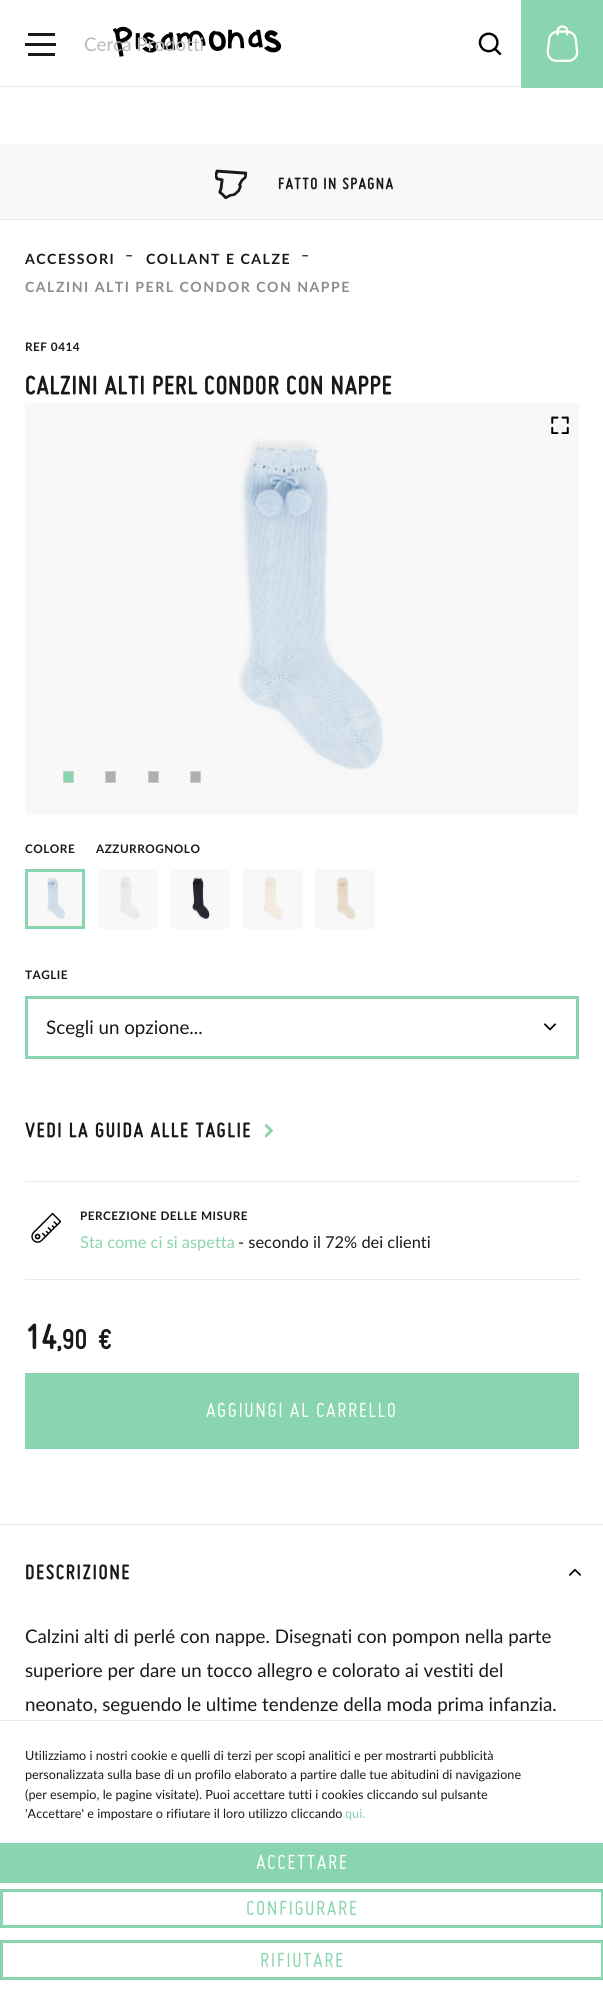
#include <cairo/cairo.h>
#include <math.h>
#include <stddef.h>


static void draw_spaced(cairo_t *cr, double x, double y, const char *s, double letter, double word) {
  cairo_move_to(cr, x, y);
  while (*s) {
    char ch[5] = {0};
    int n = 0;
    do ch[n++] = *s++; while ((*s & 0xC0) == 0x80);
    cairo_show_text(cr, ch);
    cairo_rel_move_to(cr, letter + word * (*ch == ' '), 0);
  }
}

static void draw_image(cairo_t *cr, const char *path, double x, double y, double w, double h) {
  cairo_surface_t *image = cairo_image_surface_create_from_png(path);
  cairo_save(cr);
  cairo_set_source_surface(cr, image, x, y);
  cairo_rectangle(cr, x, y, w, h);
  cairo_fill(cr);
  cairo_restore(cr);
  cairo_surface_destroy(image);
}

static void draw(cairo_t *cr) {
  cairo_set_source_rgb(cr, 1, 1, 1);
  cairo_paint(cr);
  cairo_set_source_rgb(cr, 234 / 255.0, 234 / 255.0, 234 / 255.0);
  cairo_rectangle(cr, 0, 86, 521, 1);
  cairo_fill(cr);
  cairo_set_source_rgb(cr, 25 / 255.0, 25 / 255.0, 27 / 255.0);
  cairo_rectangle(cr, 28, 33, 27, 3);
  cairo_fill(cr);
  cairo_rectangle(cr, 28, 53, 27, 3);
  cairo_fill(cr);
  cairo_rectangle(cr, 25, 43, 31, 3);
  cairo_fill(cr);
  draw_image(cr, "images/1.png", 113, 26, 168, 31);
  draw_image(cr, "images/2.png", 478, 32, 24, 24);
  cairo_set_source_rgb(cr, 137 / 255.0, 213 / 255.0, 175 / 255.0);
  cairo_rectangle(cr, 521, 0, 82, 88);
  cairo_fill(cr);
  draw_image(cr, "images/3.png", 546, 25, 33, 37);
  cairo_set_source_rgb(cr, 248 / 255.0, 248 / 255.0, 248 / 255.0);
  cairo_rectangle(cr, 0, 144, 603, 75);
  cairo_fill(cr);
  cairo_set_source_rgb(cr, 234 / 255.0, 234 / 255.0, 234 / 255.0);
  cairo_rectangle(cr, 0, 219, 603, 1);
  cairo_fill(cr);
  draw_image(cr, "images/4.png", 215, 169, 33, 31);
  cairo_set_source_rgb(cr, 248 / 255.0, 248 / 255.0, 248 / 255.0);
  cairo_rectangle(cr, 25, 403, 554, 412);
  cairo_fill(cr);
  draw_image(cr, "images/5.png", 551, 416, 18, 18);
  draw_image(cr, "images/6.png", 238, 439, 146, 331);
  cairo_set_source_rgb(cr, 137 / 255.0, 213 / 255.0, 175 / 255.0);
  cairo_rectangle(cr, 63.5, 771.5, 10, 11);
  cairo_fill_preserve(cr);
  cairo_set_source_rgb(cr, 204 / 255.0, 204 / 255.0, 204 / 255.0);
  cairo_set_line_width(cr, 1);
  cairo_stroke(cr);
  cairo_set_source_rgb(cr, 175 / 255.0, 175 / 255.0, 175 / 255.0);
  cairo_rectangle(cr, 105.5, 771.5, 10, 11);
  cairo_fill_preserve(cr);
  cairo_set_source_rgb(cr, 204 / 255.0, 204 / 255.0, 204 / 255.0);
  cairo_stroke(cr);
  cairo_set_source_rgb(cr, 175 / 255.0, 175 / 255.0, 175 / 255.0);
  cairo_rectangle(cr, 148.5, 771.5, 10, 11);
  cairo_fill_preserve(cr);
  cairo_set_source_rgb(cr, 204 / 255.0, 204 / 255.0, 204 / 255.0);
  cairo_stroke(cr);
  cairo_set_source_rgb(cr, 175 / 255.0, 175 / 255.0, 175 / 255.0);
  cairo_rectangle(cr, 190.5, 771.5, 10, 11);
  cairo_fill_preserve(cr);
  cairo_set_source_rgb(cr, 204 / 255.0, 204 / 255.0, 204 / 255.0);
  cairo_stroke(cr);
  cairo_set_source_rgb(cr, 248 / 255.0, 248 / 255.0, 248 / 255.0);
  cairo_rectangle(cr, 26.5, 870.5, 57, 57);
  cairo_fill_preserve(cr);
  cairo_set_source_rgb(cr, 137 / 255.0, 213 / 255.0, 175 / 255.0);
  cairo_set_line_width(cr, 3);
  cairo_stroke(cr);
  draw_image(cr, "images/7.png", 47, 877, 18, 42);
  cairo_set_source_rgb(cr, 248 / 255.0, 248 / 255.0, 248 / 255.0);
  cairo_rectangle(cr, 98, 869, 60, 60);
  cairo_fill(cr);
  draw_image(cr, "images/8.png", 120, 877, 20, 42);
  cairo_rectangle(cr, 170, 869, 60, 60);
  cairo_fill(cr);
  draw_image(cr, "images/9.png", 192, 877, 18, 42);
  cairo_rectangle(cr, 243, 869, 60, 60);
  cairo_fill(cr);
  draw_image(cr, "images/10.png", 264, 877, 20, 43);
  cairo_rectangle(cr, 315, 869, 60, 60);
  cairo_fill(cr);
  draw_image(cr, "images/11.png", 336, 877, 20, 43);
  cairo_rectangle(cr, 26.5, 997.5, 551, 60);
  cairo_set_source_rgb(cr, 137 / 255.0, 213 / 255.0, 175 / 255.0);
  cairo_stroke(cr);
  draw_image(cr, "images/12.png", 543, 1023, 14, 8);
  draw_image(cr, "images/13.png", 265, 1124, 8, 14);
  cairo_set_source_rgb(cr, 234 / 255.0, 234 / 255.0, 234 / 255.0);
  cairo_rectangle(cr, 25, 1181, 554, 1);
  cairo_fill(cr);
  cairo_rectangle(cr, 25, 1279, 554, 1);
  cairo_fill(cr);
  draw_image(cr, "images/14.png", 31, 1213, 30, 30);
  cairo_set_source_rgb(cr, 137 / 255.0, 213 / 255.0, 175 / 255.0);
  cairo_rectangle(cr, 25, 1373, 554, 76);
  cairo_fill(cr);
  cairo_set_source_rgb(cr, 234 / 255.0, 234 / 255.0, 234 / 255.0);
  cairo_rectangle(cr, 0, 1524, 603, 1);
  cairo_fill(cr);
  draw_image(cr, "images/15.png", 568, 1568, 14, 8);
  cairo_rectangle(cr, 0, 1720, 603, 1);
  cairo_fill(cr);
  cairo_set_source_rgb(cr, 137 / 255.0, 213 / 255.0, 175 / 255.0);
  cairo_rectangle(cr, 0, 1843, 603, 40);
  cairo_fill(cr);
  cairo_rectangle(cr, 1.5, 1890.5, 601, 36);
  cairo_stroke(cr);
  cairo_rectangle(cr, 1.5, 1941.5, 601, 37);
  cairo_stroke(cr);
  cairo_select_font_face(cr, "Lato", CAIRO_FONT_SLANT_NORMAL, CAIRO_FONT_WEIGHT_NORMAL);
  cairo_set_font_size(cr, 18.75);
  cairo_set_source_rgb(cr, 186 / 255.0, 186 / 255.0, 186 / 255.0);
  cairo_move_to(cr, 84, 51);
  cairo_show_text(cr, "Cerca Prodotti");
  cairo_select_font_face(cr, "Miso", CAIRO_FONT_SLANT_ITALIC, CAIRO_FONT_WEIGHT_BOLD);
  cairo_set_font_size(cr, 17.5);
  cairo_set_source_rgb(cr, 25 / 255.0, 25 / 255.0, 27 / 255.0);
  draw_spaced(cr, 278, 189, "FATTO IN SPAGNA", 1.25, 0);
  cairo_select_font_face(cr, "Lato", CAIRO_FONT_SLANT_NORMAL, CAIRO_FONT_WEIGHT_BOLD);
  cairo_set_font_size(cr, 14.1);
  draw_spaced(cr, 25, 264, "ACCESSORI", 1.5, 0);
  draw_spaced(cr, 125, 260, "–", 1.5, 0);
  draw_spaced(cr, 146, 264, "COLLANT E CALZE", 1.5, 0);
  draw_spaced(cr, 301, 260, "–", 1.5, 0);
  cairo_set_source_rgb(cr, 140 / 255.0, 140 / 255.0, 141 / 255.0);
  draw_spaced(cr, 25, 292, "CALZINI ALTI PERL CONDOR CON NAPPE", 1.5, 0);
  cairo_set_font_size(cr, 11.75);
  cairo_set_source_rgb(cr, 25 / 255.0, 25 / 255.0, 27 / 255.0);
  draw_spaced(cr, 25, 351, "REF 0414", 0.5, 0);
  cairo_select_font_face(cr, "Miso", CAIRO_FONT_SLANT_ITALIC, CAIRO_FONT_WEIGHT_BOLD);
  cairo_set_font_size(cr, 28.1);
  draw_spaced(cr, 25, 394, "CALZINI ALTI PERL CONDOR CON NAPPE", 0.75, 0);
  cairo_select_font_face(cr, "Lato", CAIRO_FONT_SLANT_NORMAL, CAIRO_FONT_WEIGHT_BOLD);
  cairo_set_font_size(cr, 11.75);
  draw_spaced(cr, 25, 853, "COLORE", 0.5, 0);
  draw_spaced(cr, 96, 853, "AZZURROGNOLO", 0.5, 0);
  draw_spaced(cr, 25, 979, "TAGLIE", 0.5, 0);
  cairo_select_font_face(cr, "Lato", CAIRO_FONT_SLANT_NORMAL, CAIRO_FONT_WEIGHT_NORMAL);
  cairo_set_font_size(cr, 18.75);
  cairo_move_to(cr, 46, 1034);
  cairo_show_text(cr, "Scegli un opzione...");
  cairo_select_font_face(cr, "Miso", CAIRO_FONT_SLANT_ITALIC, CAIRO_FONT_WEIGHT_BOLD);
  cairo_set_font_size(cr, 22.25);
  draw_spaced(cr, 25, 1137, "VEDI LA GUIDA ALLE TAGLIE", 1.5, 0);
  cairo_select_font_face(cr, "Lato", CAIRO_FONT_SLANT_NORMAL, CAIRO_FONT_WEIGHT_BOLD);
  cairo_set_font_size(cr, 11.75);
  draw_spaced(cr, 80, 1220, "PERCEZIONE DELLE MISURE", 0.5, 0);
  cairo_select_font_face(cr, "Lato", CAIRO_FONT_SLANT_NORMAL, CAIRO_FONT_WEIGHT_NORMAL);
  cairo_set_font_size(cr, 16.4);
  cairo_set_source_rgb(cr, 137 / 255.0, 213 / 255.0, 175 / 255.0);
  cairo_move_to(cr, 80, 1248);
  cairo_show_text(cr, "Sta come ci si aspetta");
  cairo_set_source_rgb(cr, 25 / 255.0, 25 / 255.0, 27 / 255.0);
  cairo_move_to(cr, 238, 1248);
  cairo_show_text(cr, "- secondo il 72% dei clienti");
  cairo_select_font_face(cr, "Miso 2", CAIRO_FONT_SLANT_ITALIC, CAIRO_FONT_WEIGHT_BOLD);
  cairo_set_font_size(cr, 38);
  cairo_move_to(cr, 25, 1349);
  cairo_show_text(cr, "14");
  cairo_set_font_size(cr, 30);
  cairo_move_to(cr, 56, 1349);
  cairo_show_text(cr, ",90  €");
  cairo_select_font_face(cr, "Miso", CAIRO_FONT_SLANT_ITALIC, CAIRO_FONT_WEIGHT_NORMAL);
  cairo_set_font_size(cr, 22.25);
  cairo_set_source_rgb(cr, 1, 1, 1);
  draw_spaced(cr, 206, 1417, "AGGIUNGI AL CARRELLO", 1.5, 0);
  cairo_select_font_face(cr, "Miso", CAIRO_FONT_SLANT_ITALIC, CAIRO_FONT_WEIGHT_BOLD);
  cairo_set_source_rgb(cr, 25 / 255.0, 25 / 255.0, 27 / 255.0);
  draw_spaced(cr, 25, 1579, "DESCRIZIONE", 1.5, 0);
  cairo_select_font_face(cr, "Lato", CAIRO_FONT_SLANT_NORMAL, CAIRO_FONT_WEIGHT_NORMAL);
  cairo_set_font_size(cr, 18.75);
  cairo_move_to(cr, 25, 1643);
  cairo_show_text(cr, "Calzini alti di perlé con nappe. Disegnati con pompon nella parte");
  cairo_move_to(cr, 25, 1677);
  cairo_show_text(cr, "superiore per dare un tocco allegro e colorato ai vestiti del");
  cairo_move_to(cr, 25, 1711);
  cairo_show_text(cr, "neonato, seguendo le ultime tendenze della moda prima infanzia.");
  cairo_set_font_size(cr, 12.65);
  cairo_move_to(cr, 25, 1760);
  cairo_show_text(cr, "Utilizziamo i nostri cookie e quelli di terzi per scopi analitici e per mostrarti pubblicità");
  cairo_move_to(cr, 25, 1779);
  cairo_show_text(cr, "personalizzata sulla base di un profilo elaborato a partire dalle tue abitudini di navigazione");
  cairo_move_to(cr, 25, 1799);
  cairo_show_text(cr, "(per esempio, le pagine visitate). Puoi accettare tutti i cookies cliccando sul pulsante");
  cairo_move_to(cr, 25, 1818);
  cairo_show_text(cr, "'Accettare' e impostare o rifiutare il loro utilizzo cliccando");
  cairo_set_source_rgb(cr, 137 / 255.0, 213 / 255.0, 175 / 255.0);
  cairo_move_to(cr, 345, 1818);
  cairo_show_text(cr, "qui.");
  cairo_select_font_face(cr, "Miso", CAIRO_FONT_SLANT_ITALIC, CAIRO_FONT_WEIGHT_NORMAL);
  cairo_set_font_size(cr, 22.25);
  cairo_set_source_rgb(cr, 1, 1, 1);
  draw_spaced(cr, 256, 1869, "ACCETTARE", 1.5, 0);
  cairo_set_source_rgb(cr, 137 / 255.0, 213 / 255.0, 175 / 255.0);
  draw_spaced(cr, 246, 1915, "CONFIGURARE", 1.5, 0);
  draw_spaced(cr, 260, 1967, "RIFIUTARE", 1.5, 0);
}

int main(void) {
  cairo_surface_t *surface = cairo_image_surface_create(CAIRO_FORMAT_RGB24, 603, 2011);
  cairo_t *cr = cairo_create(surface);
  cairo_font_options_t *options = cairo_font_options_create();
  cairo_font_options_set_hint_metrics(options, CAIRO_HINT_METRICS_OFF);
  cairo_font_options_set_hint_style(options, CAIRO_HINT_STYLE_NONE);
  cairo_set_font_options(cr, options);
  cairo_set_miter_limit(cr, 4);
  draw(cr);
  cairo_surface_write_to_png(surface, "out.png");
  cairo_font_options_destroy(options);
  cairo_destroy(cr);
  cairo_surface_destroy(surface);
  return 0;
}
